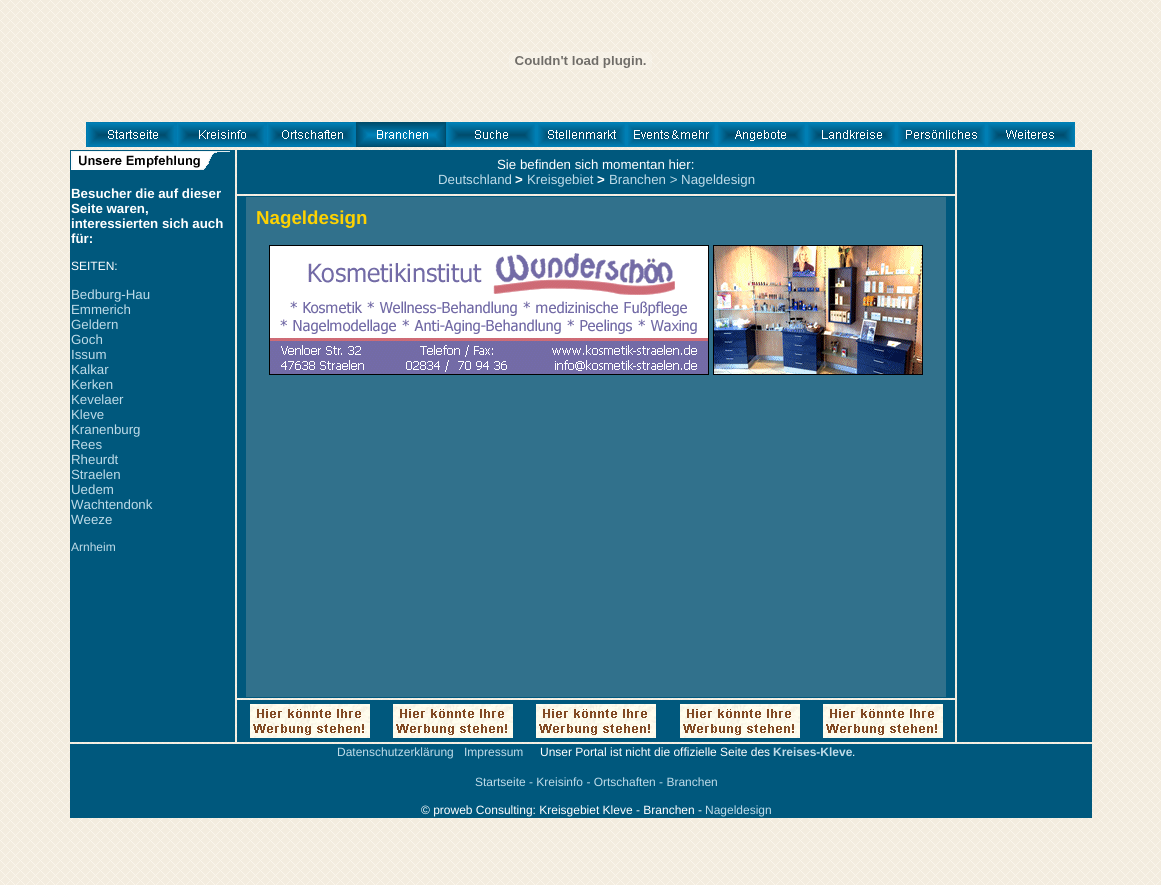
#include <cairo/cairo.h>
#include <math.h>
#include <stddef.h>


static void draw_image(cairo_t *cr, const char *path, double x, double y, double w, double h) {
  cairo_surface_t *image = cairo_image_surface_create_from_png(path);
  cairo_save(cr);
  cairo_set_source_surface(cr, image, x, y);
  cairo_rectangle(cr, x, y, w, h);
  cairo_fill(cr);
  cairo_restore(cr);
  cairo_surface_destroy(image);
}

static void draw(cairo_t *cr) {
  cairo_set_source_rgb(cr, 1, 1, 1);
  cairo_paint(cr);
  draw_image(cr, "images/1.png", 0, 0, 1161, 885);
  draw_image(cr, "images/2.png", 509, 52, 143, 18);
  draw_image(cr, "images/3.png", 86, 122, 90, 25);
  draw_image(cr, "images/4.png", 176, 122, 90, 25);
  draw_image(cr, "images/5.png", 266, 122, 90, 25);
  draw_image(cr, "images/6.png", 356, 122, 90, 25);
  draw_image(cr, "images/7.png", 446, 122, 90, 25);
  draw_image(cr, "images/8.png", 536, 122, 90, 25);
  draw_image(cr, "images/9.png", 626, 122, 90, 25);
  draw_image(cr, "images/10.png", 716, 122, 90, 25);
  draw_image(cr, "images/11.png", 806, 122, 90, 25);
  draw_image(cr, "images/12.png", 896, 122, 90, 25);
  draw_image(cr, "images/13.png", 986, 122, 89, 25);
  cairo_set_source_rgb(cr, 0, 88 / 255.0, 125 / 255.0);
  cairo_rectangle(cr, 237, 150, 718, 44);
  cairo_fill(cr);
  cairo_rectangle(cr, 957, 150, 135, 592);
  cairo_fill(cr);
  cairo_rectangle(cr, 70, 150, 165, 592);
  cairo_fill(cr);
  draw_image(cr, "images/14.png", 71, 151, 159, 19);
  cairo_rectangle(cr, 237, 196, 718, 502);
  cairo_fill(cr);
  cairo_set_source_rgb(cr, 49 / 255.0, 113 / 255.0, 140 / 255.0);
  cairo_rectangle(cr, 246, 197, 700, 500);
  cairo_fill(cr);
  draw_image(cr, "images/15.png", 269, 245, 440, 130);
  draw_image(cr, "images/16.png", 713, 245, 210, 130);
  cairo_set_source_rgb(cr, 0, 88 / 255.0, 125 / 255.0);
  cairo_rectangle(cr, 237, 700, 718, 42);
  cairo_fill(cr);
  draw_image(cr, "images/17.png", 250, 704, 120, 34);
  draw_image(cr, "images/17.png", 393, 704, 120, 34);
  draw_image(cr, "images/17.png", 536, 704, 120, 34);
  draw_image(cr, "images/17.png", 680, 704, 120, 34);
  draw_image(cr, "images/17.png", 823, 704, 120, 34);
  cairo_rectangle(cr, 70, 744, 1022, 74);
  cairo_fill(cr);
  cairo_select_font_face(cr, "Liberation Sans", CAIRO_FONT_SLANT_NORMAL, CAIRO_FONT_WEIGHT_NORMAL);
  cairo_set_font_size(cr, 13.3);
  cairo_set_source_rgb(cr, 1, 1, 1);
  cairo_move_to(cr, 497, 169);
  cairo_show_text(cr, "Sie befinden sich momentan hier:");
  cairo_set_source_rgb(cr, 190 / 255.0, 219 / 255.0, 232 / 255.0);
  cairo_move_to(cr, 438, 184);
  cairo_show_text(cr, "Deutschland");
  cairo_select_font_face(cr, "Liberation Sans", CAIRO_FONT_SLANT_NORMAL, CAIRO_FONT_WEIGHT_BOLD);
  cairo_set_source_rgb(cr, 1, 1, 1);
  cairo_move_to(cr, 515, 184);
  cairo_show_text(cr, ">");
  cairo_select_font_face(cr, "Liberation Sans", CAIRO_FONT_SLANT_NORMAL, CAIRO_FONT_WEIGHT_NORMAL);
  cairo_set_source_rgb(cr, 190 / 255.0, 219 / 255.0, 232 / 255.0);
  cairo_move_to(cr, 527, 184);
  cairo_show_text(cr, "Kreisgebiet");
  cairo_select_font_face(cr, "Liberation Sans", CAIRO_FONT_SLANT_NORMAL, CAIRO_FONT_WEIGHT_BOLD);
  cairo_set_source_rgb(cr, 1, 1, 1);
  cairo_move_to(cr, 597, 184);
  cairo_show_text(cr, ">");
  cairo_select_font_face(cr, "Liberation Sans", CAIRO_FONT_SLANT_NORMAL, CAIRO_FONT_WEIGHT_NORMAL);
  cairo_set_source_rgb(cr, 190 / 255.0, 219 / 255.0, 232 / 255.0);
  cairo_move_to(cr, 609, 184);
  cairo_show_text(cr, "Branchen > Nageldesign");
  cairo_select_font_face(cr, "Liberation Sans", CAIRO_FONT_SLANT_NORMAL, CAIRO_FONT_WEIGHT_BOLD);
  cairo_set_source_rgb(cr, 1, 1, 1);
  cairo_move_to(cr, 71, 198);
  cairo_show_text(cr, "Besucher die auf dieser");
  cairo_move_to(cr, 71, 213);
  cairo_show_text(cr, "Seite waren,");
  cairo_move_to(cr, 71, 228);
  cairo_show_text(cr, "interessierten sich auch");
  cairo_move_to(cr, 71, 243);
  cairo_show_text(cr, "für:");
  cairo_select_font_face(cr, "Liberation Sans", CAIRO_FONT_SLANT_NORMAL, CAIRO_FONT_WEIGHT_NORMAL);
  cairo_set_font_size(cr, 12);
  cairo_move_to(cr, 71, 270);
  cairo_show_text(cr, "SEITEN:");
  cairo_set_font_size(cr, 13.3);
  cairo_set_source_rgb(cr, 190 / 255.0, 219 / 255.0, 232 / 255.0);
  cairo_move_to(cr, 71, 299);
  cairo_show_text(cr, "Bedburg-Hau");
  cairo_move_to(cr, 71, 314);
  cairo_show_text(cr, "Emmerich");
  cairo_move_to(cr, 71, 329);
  cairo_show_text(cr, "Geldern");
  cairo_move_to(cr, 71, 344);
  cairo_show_text(cr, "Goch");
  cairo_move_to(cr, 71, 359);
  cairo_show_text(cr, "Issum");
  cairo_move_to(cr, 71, 374);
  cairo_show_text(cr, "Kalkar");
  cairo_move_to(cr, 71, 389);
  cairo_show_text(cr, "Kerken");
  cairo_move_to(cr, 71, 404);
  cairo_show_text(cr, "Kevelaer");
  cairo_move_to(cr, 71, 419);
  cairo_show_text(cr, "Kleve");
  cairo_move_to(cr, 71, 434);
  cairo_show_text(cr, "Kranenburg");
  cairo_move_to(cr, 71, 449);
  cairo_show_text(cr, "Rees");
  cairo_move_to(cr, 71, 464);
  cairo_show_text(cr, "Rheurdt");
  cairo_move_to(cr, 71, 479);
  cairo_show_text(cr, "Straelen");
  cairo_move_to(cr, 71, 494);
  cairo_show_text(cr, "Uedem");
  cairo_move_to(cr, 71, 509);
  cairo_show_text(cr, "Wachtendonk");
  cairo_move_to(cr, 71, 524);
  cairo_show_text(cr, "Weeze");
  cairo_set_font_size(cr, 12);
  cairo_move_to(cr, 71, 551);
  cairo_show_text(cr, "Arnheim");
  cairo_select_font_face(cr, "Liberation Sans", CAIRO_FONT_SLANT_NORMAL, CAIRO_FONT_WEIGHT_BOLD);
  cairo_set_font_size(cr, 18.75);
  cairo_set_source_rgb(cr, 254 / 255.0, 210 / 255.0, 1 / 255.0);
  cairo_move_to(cr, 256, 224);
  cairo_show_text(cr, "Nageldesign");
  cairo_select_font_face(cr, "Liberation Sans", CAIRO_FONT_SLANT_NORMAL, CAIRO_FONT_WEIGHT_NORMAL);
  cairo_set_font_size(cr, 12);
  cairo_set_source_rgb(cr, 190 / 255.0, 219 / 255.0, 232 / 255.0);
  cairo_move_to(cr, 337, 756);
  cairo_show_text(cr, "Datenschutzerklärung");
  cairo_move_to(cr, 464, 756);
  cairo_show_text(cr, "Impressum");
  cairo_set_source_rgb(cr, 1, 1, 1);
  cairo_move_to(cr, 540, 756);
  cairo_show_text(cr, "Unser Portal ist nicht die offizielle Seite des");
  cairo_select_font_face(cr, "Liberation Sans", CAIRO_FONT_SLANT_NORMAL, CAIRO_FONT_WEIGHT_BOLD);
  cairo_set_source_rgb(cr, 190 / 255.0, 219 / 255.0, 232 / 255.0);
  cairo_move_to(cr, 773, 756);
  cairo_show_text(cr, "Kreises-Kleve");
  cairo_select_font_face(cr, "Liberation Sans", CAIRO_FONT_SLANT_NORMAL, CAIRO_FONT_WEIGHT_NORMAL);
  cairo_set_source_rgb(cr, 1, 1, 1);
  cairo_move_to(cr, 852, 756);
  cairo_show_text(cr, ".");
  cairo_set_source_rgb(cr, 190 / 255.0, 219 / 255.0, 232 / 255.0);
  cairo_move_to(cr, 475, 786);
  cairo_show_text(cr, "Startseite - Kreisinfo - Ortschaften - Branchen");
  cairo_set_source_rgb(cr, 1, 1, 1);
  cairo_move_to(cr, 421, 814);
  cairo_show_text(cr, "© proweb Consulting: Kreisgebiet Kleve - Branchen -");
  cairo_set_source_rgb(cr, 190 / 255.0, 219 / 255.0, 232 / 255.0);
  cairo_move_to(cr, 705, 814);
  cairo_show_text(cr, "Nageldesign");
}

int main(void) {
  cairo_surface_t *surface = cairo_image_surface_create(CAIRO_FORMAT_RGB24, 1161, 885);
  cairo_t *cr = cairo_create(surface);
  cairo_font_options_t *options = cairo_font_options_create();
  cairo_font_options_set_hint_metrics(options, CAIRO_HINT_METRICS_OFF);
  cairo_font_options_set_hint_style(options, CAIRO_HINT_STYLE_NONE);
  cairo_set_font_options(cr, options);
  cairo_set_miter_limit(cr, 4);
  draw(cr);
  cairo_surface_write_to_png(surface, "out.png");
  cairo_font_options_destroy(options);
  cairo_destroy(cr);
  cairo_surface_destroy(surface);
  return 0;
}
